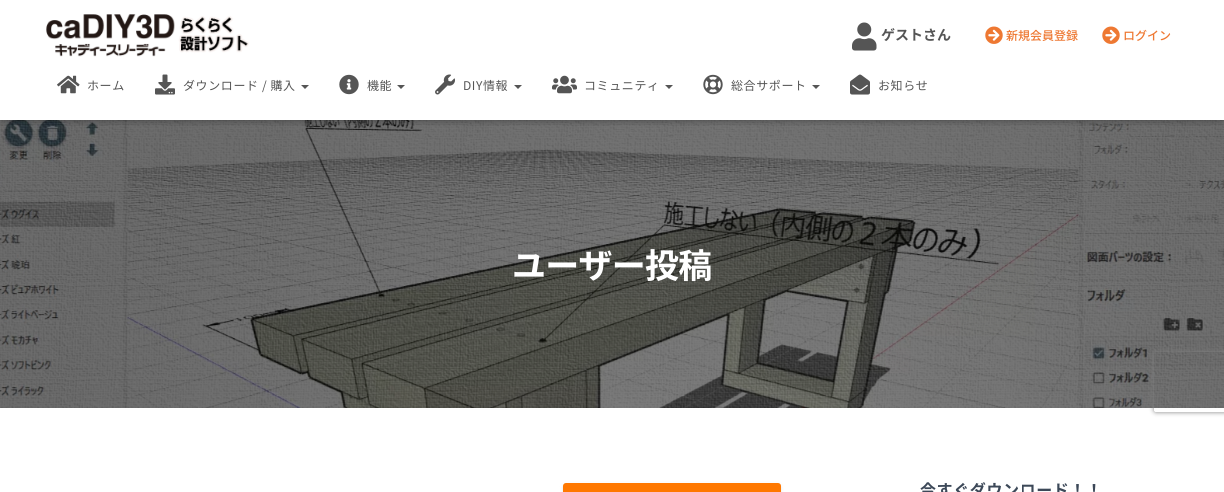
#include <cairo/cairo.h>
#include <math.h>
#include <stddef.h>


static void draw_spaced(cairo_t *cr, double x, double y, const char *s, double letter, double word) {
  cairo_move_to(cr, x, y);
  while (*s) {
    char ch[5] = {0};
    int n = 0;
    do ch[n++] = *s++; while ((*s & 0xC0) == 0x80);
    cairo_show_text(cr, ch);
    cairo_rel_move_to(cr, letter + word * (*ch == ' '), 0);
  }
}

static void rounded_rect(cairo_t *cr, double x, double y, double w, double h, double r) {
  cairo_new_sub_path(cr);
  cairo_arc(cr, x + w - r, y + h - r, r, 0, M_PI / 2);
  cairo_arc(cr, x + r, y + h - r, r, M_PI / 2, M_PI);
  cairo_arc(cr, x + r, y + r, r, M_PI, 1.5 * M_PI);
  cairo_arc(cr, x + w - r, y + r, r, 1.5 * M_PI, 2 * M_PI);
  cairo_close_path(cr);
}

static void draw_shadow(cairo_t *cr, double x, double y, double w, double h, double r, double blur, double alpha) {
  cairo_push_group_with_content(cr, CAIRO_CONTENT_ALPHA);
  cairo_set_operator(cr, CAIRO_OPERATOR_SOURCE);
  for (int i = 15; i >= -15 && fmin(w, h) + blur * i / 3 > 0; i -= 2) {
    double e = blur * i / 6;
    cairo_set_source_rgba(cr, 0, 0, 0, alpha * erfc((i - 1) / 8.5) / 2);
    rounded_rect(cr, x - e, y - e, w + 2 * e, h + 2 * e, fmax(0, fmin(r + e + blur * .6, fmin(w, h) / 2 + e)));
    cairo_fill(cr);
  }
  cairo_pattern_t *soft = cairo_pop_group(cr);
  cairo_mask(cr, soft);
  cairo_pattern_destroy(soft);
}

static void draw_image(cairo_t *cr, const char *path, double x, double y, double w, double h) {
  cairo_surface_t *image = cairo_image_surface_create_from_png(path);
  cairo_save(cr);
  cairo_set_source_surface(cr, image, x, y);
  cairo_rectangle(cr, x, y, w, h);
  cairo_fill(cr);
  cairo_restore(cr);
  cairo_surface_destroy(image);
}

static void draw(cairo_t *cr) {
  cairo_set_source_rgb(cr, 1, 1, 1);
  cairo_paint(cr);
  draw_image(cr, "images/11.png", 0, 120, 1224, 288);
  cairo_set_source_rgb(cr, 0, 0, 0);
  draw_shadow(cr, 2, 6, 1220, 116, 0, 2.5, 0.1);
  draw_shadow(cr, 0, 1, 1224, 120, 0, 5, 0.12);
  draw_shadow(cr, 6, 7, 1212, 108, 0, 5, 0.42);
  cairo_set_source_rgb(cr, 1, 1, 1);
  cairo_rectangle(cr, 0, 0, 1224, 120);
  cairo_fill(cr);
  draw_image(cr, "images/1.png", 46, 14, 203, 43);
  draw_image(cr, "images/2.png", 852, 22, 25, 29);
  draw_image(cr, "images/3.png", 985, 26, 18, 18);
  draw_image(cr, "images/3.png", 1102, 26, 18, 18);
  draw_image(cr, "images/4.png", 57, 75, 23, 19);
  draw_image(cr, "images/5.png", 155, 74, 20, 21);
  cairo_set_source_rgb(cr, 85 / 255.0, 85 / 255.0, 85 / 255.0);
  cairo_new_path(cr);
  cairo_move_to(cr, 301, 85);
  cairo_line_to(cr, 309, 85);
  cairo_line_to(cr, 305, 89);
  cairo_close_path(cr);
  cairo_fill(cr);
  draw_image(cr, "images/6.png", 339, 74, 20, 21);
  cairo_new_path(cr);
  cairo_move_to(cr, 397, 85);
  cairo_line_to(cr, 405, 85);
  cairo_line_to(cr, 401, 89);
  cairo_close_path(cr);
  cairo_fill(cr);
  draw_image(cr, "images/7.png", 435, 74, 20, 21);
  cairo_new_path(cr);
  cairo_move_to(cr, 514, 85);
  cairo_line_to(cr, 522, 85);
  cairo_line_to(cr, 518, 89);
  cairo_close_path(cr);
  cairo_fill(cr);
  draw_image(cr, "images/8.png", 552, 75, 25, 19);
  cairo_new_path(cr);
  cairo_move_to(cr, 665, 85);
  cairo_line_to(cr, 673, 85);
  cairo_line_to(cr, 669, 89);
  cairo_close_path(cr);
  cairo_fill(cr);
  draw_image(cr, "images/9.png", 703, 74, 20, 21);
  cairo_new_path(cr);
  cairo_move_to(cr, 812, 85);
  cairo_line_to(cr, 820, 85);
  cairo_line_to(cr, 816, 89);
  cairo_close_path(cr);
  cairo_fill(cr);
  draw_image(cr, "images/10.png", 850, 74, 20, 21);
  cairo_set_source_rgb(cr, 153 / 255.0, 153 / 255.0, 153 / 255.0);
  draw_shadow(cr, 563, 484, 218, 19, 3, 2.5, 0.12);
  draw_shadow(cr, 563, 485, 218, 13, 3, 1, 0.14);
  cairo_set_source_rgb(cr, 1, 120 / 255.0, 0);
  rounded_rect(cr, 563, 483, 218, 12, 3);
  cairo_fill(cr);
  cairo_save(cr);
  cairo_set_fill_rule(cr, CAIRO_FILL_RULE_EVEN_ODD);
  cairo_new_path(cr);
  cairo_move_to(cr, 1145, 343);
  cairo_line_to(cr, 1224, 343);
  cairo_line_to(cr, 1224, 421);
  cairo_line_to(cr, 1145, 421);
  cairo_close_path(cr);
  cairo_move_to(cr, 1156, 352);
  cairo_line_to(cr, 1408, 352);
  cairo_curve_to(cr, 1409, 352, 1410, 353, 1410, 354);
  cairo_line_to(cr, 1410, 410);
  cairo_curve_to(cr, 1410, 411, 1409, 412, 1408, 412);
  cairo_line_to(cr, 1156, 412);
  cairo_curve_to(cr, 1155, 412, 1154, 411, 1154, 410);
  cairo_line_to(cr, 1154, 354);
  cairo_curve_to(cr, 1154, 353, 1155, 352, 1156, 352);
  cairo_close_path(cr);
  cairo_clip(cr);
  cairo_set_source_rgb(cr, 128 / 255.0, 128 / 255.0, 128 / 255.0);
  draw_shadow(cr, 1154, 352, 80, 60, 2, 2.5, 1);
  cairo_restore(cr);
  cairo_select_font_face(cr, "Noto Sans JP", CAIRO_FONT_SLANT_NORMAL, CAIRO_FONT_WEIGHT_BOLD);
  cairo_set_font_size(cr, 14);
  cairo_set_source_rgb(cr, 85 / 255.0, 85 / 255.0, 85 / 255.0);
  cairo_move_to(cr, 881, 40);
  cairo_show_text(cr, "ゲストさん");
  cairo_select_font_face(cr, "Noto Sans JP Medium", CAIRO_FONT_SLANT_NORMAL, CAIRO_FONT_WEIGHT_NORMAL);
  cairo_set_font_size(cr, 12);
  cairo_set_source_rgb(cr, 238 / 255.0, 120 / 255.0, 50 / 255.0);
  cairo_move_to(cr, 1006, 40);
  cairo_show_text(cr, "新規会員登録");
  cairo_move_to(cr, 1123, 40);
  cairo_show_text(cr, "ログイン");
  cairo_select_font_face(cr, "Noto Sans JP", CAIRO_FONT_SLANT_NORMAL, CAIRO_FONT_WEIGHT_NORMAL);
  cairo_set_source_rgb(cr, 85 / 255.0, 85 / 255.0, 85 / 255.0);
  draw_spaced(cr, 87, 90, "ホーム", 0.6, 0);
  draw_spaced(cr, 183, 90, "ダウンロード / 購入", 0.6, 0);
  draw_spaced(cr, 367, 90, "機能", 0.6, 0);
  draw_spaced(cr, 463, 90, "DIY情報", 0.6, 0);
  draw_spaced(cr, 584, 90, "コミュニティ", 0.6, 0);
  draw_spaced(cr, 731, 90, "総合サポート", 0.6, 0);
  draw_spaced(cr, 878, 90, "お知らせ", 0.6, 0);
  cairo_select_font_face(cr, "Noto Sans JP", CAIRO_FONT_SLANT_NORMAL, CAIRO_FONT_WEIGHT_BOLD);
  cairo_set_font_size(cr, 34);
  cairo_set_source_rgb(cr, 1, 1, 1);
  draw_spaced(cr, 512, 278, "ユーザー投稿", -0.75, 0);
  cairo_set_font_size(cr, 16);
  cairo_set_source_rgb(cr, 60 / 255.0, 72 / 255.0, 88 / 255.0);
  draw_spaced(cr, 920, 496, "今すぐダウンロード！！", 0.6, 0);
}

int main(void) {
  cairo_surface_t *surface = cairo_image_surface_create(CAIRO_FORMAT_RGB24, 1224, 492);
  cairo_t *cr = cairo_create(surface);
  cairo_font_options_t *options = cairo_font_options_create();
  cairo_font_options_set_hint_metrics(options, CAIRO_HINT_METRICS_OFF);
  cairo_font_options_set_hint_style(options, CAIRO_HINT_STYLE_NONE);
  cairo_set_font_options(cr, options);
  cairo_set_miter_limit(cr, 4);
  draw(cr);
  cairo_surface_write_to_png(surface, "out.png");
  cairo_font_options_destroy(options);
  cairo_destroy(cr);
  cairo_surface_destroy(surface);
  return 0;
}
